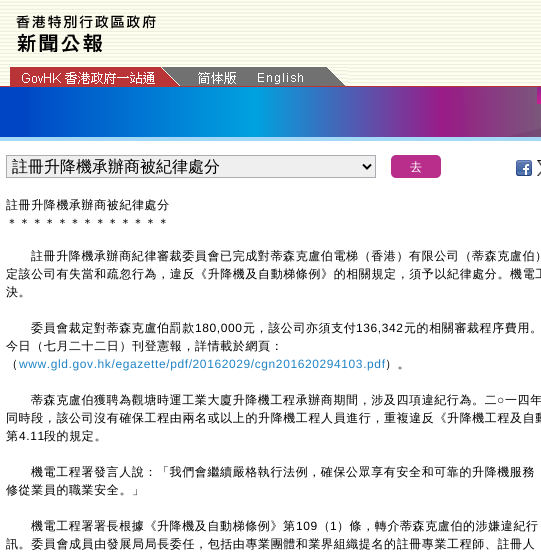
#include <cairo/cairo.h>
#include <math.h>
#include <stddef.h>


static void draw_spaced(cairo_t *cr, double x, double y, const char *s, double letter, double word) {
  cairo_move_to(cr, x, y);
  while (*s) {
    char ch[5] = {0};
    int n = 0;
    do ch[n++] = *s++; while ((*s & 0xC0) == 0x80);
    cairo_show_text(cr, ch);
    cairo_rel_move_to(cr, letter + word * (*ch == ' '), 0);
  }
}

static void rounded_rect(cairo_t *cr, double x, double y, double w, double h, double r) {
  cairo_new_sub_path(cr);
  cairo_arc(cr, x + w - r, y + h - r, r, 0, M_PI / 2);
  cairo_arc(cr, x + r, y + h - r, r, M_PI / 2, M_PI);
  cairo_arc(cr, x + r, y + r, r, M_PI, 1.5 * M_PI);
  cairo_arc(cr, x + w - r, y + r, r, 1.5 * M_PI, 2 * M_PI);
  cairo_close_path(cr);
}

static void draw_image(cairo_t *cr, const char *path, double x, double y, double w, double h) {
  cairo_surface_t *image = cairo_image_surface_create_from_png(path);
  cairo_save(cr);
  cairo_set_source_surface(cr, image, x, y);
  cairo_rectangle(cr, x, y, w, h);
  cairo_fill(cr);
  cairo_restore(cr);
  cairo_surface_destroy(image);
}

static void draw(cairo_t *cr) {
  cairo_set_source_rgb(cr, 1, 1, 1);
  cairo_paint(cr);
  draw_image(cr, "images/1.png", 0, 0, 541, 86);
  cairo_set_source_rgb(cr, 187 / 255.0, 51 / 255.0, 51 / 255.0);
  cairo_rectangle(cr, 0, 86, 541, 1);
  cairo_fill(cr);
  draw_image(cr, "images/2.png", 16, 15, 140, 37);
  cairo_set_source_rgb(cr, 113 / 255.0, 113 / 255.0, 113 / 255.0);
  cairo_rectangle(cr, 180, 67, 147, 19);
  cairo_fill(cr);
  draw_image(cr, "images/3.png", 10, 67, 170, 19);
  draw_image(cr, "images/4.png", 22, 72, 133, 12);
  draw_image(cr, "images/5.png", 198, 72, 38, 12);
  draw_image(cr, "images/6.png", 327, 67, 21, 19);
  draw_image(cr, "images/7.png", 258, 73, 45, 11);
  cairo_set_source_rgb(cr, 0, 70 / 255.0, 196 / 255.0);
  cairo_rectangle(cr, 0, 87, 29, 50);
  cairo_fill(cr);
  draw_image(cr, "images/8.png", 29, 87, 512, 50);
  cairo_set_source_rgb(cr, 163 / 255.0, 216 / 255.0, 247 / 255.0);
  cairo_rectangle(cr, 0, 137, 541, 4);
  cairo_fill(cr);
  cairo_set_source_rgb(cr, 239 / 255.0, 239 / 255.0, 239 / 255.0);
  cairo_rectangle(cr, 6.5, 155.5, 369, 22);
  cairo_fill_preserve(cr);
  cairo_set_source_rgb(cr, 171 / 255.0, 173 / 255.0, 179 / 255.0);
  cairo_set_line_width(cr, 1);
  cairo_stroke(cr);
  cairo_new_path(cr);
  cairo_move_to(cr, 363, 164.5);
  cairo_line_to(cr, 367, 168.5);
  cairo_line_to(cr, 371, 164.5);
  cairo_set_source_rgb(cr, 0, 0, 0);
  cairo_set_line_width(cr, 2);
  cairo_stroke(cr);
  cairo_set_source_rgb(cr, 184 / 255.0, 46 / 255.0, 138 / 255.0);
  rounded_rect(cr, 391, 155, 50, 23, 5);
  cairo_fill(cr);
  draw_image(cr, "images/9.png", 516, 160, 16, 16);
  draw_image(cr, "images/10.png", 537, 160, 4, 16);
  cairo_select_font_face(cr, "WenQuanYi Zen Hei Medium", CAIRO_FONT_SLANT_NORMAL, CAIRO_FONT_WEIGHT_NORMAL);
  cairo_set_font_size(cr, 16);
  cairo_set_source_rgb(cr, 0, 0, 0);
  cairo_move_to(cr, 12, 172);
  cairo_show_text(cr, "註冊升降機承辦商被紀律處分");
  cairo_set_font_size(cr, 12);
  cairo_set_source_rgb(cr, 1, 1, 1);
  cairo_move_to(cr, 410, 171);
  cairo_show_text(cr, "去");
  cairo_set_source_rgb(cr, 0, 0, 0);
  draw_spaced(cr, 6, 209, "註冊升降機承辦商被紀律處分", 0.6, 0);
  draw_spaced(cr, 6, 227, "＊＊＊＊＊＊＊＊＊＊＊＊＊", 0.6, 0);
  draw_spaced(cr, 31, 260, "註冊升降機承辦商紀律審裁委員會已完成對蒂森克盧伯電梯（香港）有限公司（蒂森克盧伯）", 0.6, 0);
  draw_spaced(cr, 6, 278, "定該公司有失當和疏忽行為，違反《升降機及自動梯條例》的相關規定，須予以紀律處分。機電工", 0.6, 0);
  draw_spaced(cr, 6, 296, "決。", 0.6, 0);
  draw_spaced(cr, 31, 332, "委員會裁定對蒂森克盧伯罰款", 0.6, 0);
  cairo_select_font_face(cr, "Liberation Sans", CAIRO_FONT_SLANT_NORMAL, CAIRO_FONT_WEIGHT_NORMAL);
  draw_spaced(cr, 195, 332, "180,000", 0.6, 0);
  cairo_select_font_face(cr, "WenQuanYi Zen Hei Medium", CAIRO_FONT_SLANT_NORMAL, CAIRO_FONT_WEIGHT_NORMAL);
  draw_spaced(cr, 243, 332, "元，該公司亦須支付", 0.6, 0);
  cairo_select_font_face(cr, "Liberation Sans", CAIRO_FONT_SLANT_NORMAL, CAIRO_FONT_WEIGHT_NORMAL);
  draw_spaced(cr, 356, 332, "136,342", 0.6, 0);
  cairo_select_font_face(cr, "WenQuanYi Zen Hei Medium", CAIRO_FONT_SLANT_NORMAL, CAIRO_FONT_WEIGHT_NORMAL);
  draw_spaced(cr, 404, 332, "元的相關審裁程序費用。", 0.6, 0);
  draw_spaced(cr, 6, 350, "今日（七月二十二日）刊登憲報，詳情載於網頁：", 0.6, 0);
  draw_spaced(cr, 6, 368, "（", 0.6, 0);
  cairo_select_font_face(cr, "Liberation Sans", CAIRO_FONT_SLANT_NORMAL, CAIRO_FONT_WEIGHT_NORMAL);
  cairo_set_source_rgb(cr, 32 / 255.0, 131 / 255.0, 197 / 255.0);
  draw_spaced(cr, 19, 368, "www.gld.gov.hk/egazette/pdf/20162029/cgn201620294103.pdf", 0.6, 0);
  cairo_select_font_face(cr, "WenQuanYi Zen Hei Medium", CAIRO_FONT_SLANT_NORMAL, CAIRO_FONT_WEIGHT_NORMAL);
  cairo_set_source_rgb(cr, 0, 0, 0);
  draw_spaced(cr, 385, 368, "）。", 0.6, 0);
  draw_spaced(cr, 31, 404, "蒂森克盧伯獲聘為觀塘時運工業大廈升降機工程承辦商期間，涉及四項違紀行為。二", 0.6, 0);
  cairo_select_font_face(cr, "Liberation Sans", CAIRO_FONT_SLANT_NORMAL, CAIRO_FONT_WEIGHT_NORMAL);
  draw_spaced(cr, 497, 404, "○", 0.6, 0);
  cairo_select_font_face(cr, "WenQuanYi Zen Hei Medium", CAIRO_FONT_SLANT_NORMAL, CAIRO_FONT_WEIGHT_NORMAL);
  draw_spaced(cr, 505, 404, "一四年", 0.6, 0);
  draw_spaced(cr, 6, 422, "同時段，該公司沒有確保工程由兩名或以上的升降機工程人員進行，重複違反《升降機工程及自動", 0.6, 0);
  draw_spaced(cr, 6, 440, "第", 0.6, 0);
  cairo_select_font_face(cr, "Liberation Sans", CAIRO_FONT_SLANT_NORMAL, CAIRO_FONT_WEIGHT_NORMAL);
  draw_spaced(cr, 19, 440, "4.11", 0.6, 0);
  cairo_select_font_face(cr, "WenQuanYi Zen Hei Medium", CAIRO_FONT_SLANT_NORMAL, CAIRO_FONT_WEIGHT_NORMAL);
  draw_spaced(cr, 44, 440, "段的規定。", 0.6, 0);
  draw_spaced(cr, 31, 476, "機電工程署發言人說：「我們會繼續嚴格執行法例，確保公眾享有安全和可靠的升降機服務", 0.6, 0);
  draw_spaced(cr, 6, 494, "修從業員的職業安全。」", 0.6, 0);
  draw_spaced(cr, 31, 530, "機電工程署署長根據《升降機及自動梯條例》第", 0.6, 0);
  cairo_select_font_face(cr, "Liberation Sans", CAIRO_FONT_SLANT_NORMAL, CAIRO_FONT_WEIGHT_NORMAL);
  draw_spaced(cr, 296, 530, "109", 0.6, 0);
  cairo_select_font_face(cr, "WenQuanYi Zen Hei Medium", CAIRO_FONT_SLANT_NORMAL, CAIRO_FONT_WEIGHT_NORMAL);
  draw_spaced(cr, 318, 530, "（", 0.6, 0);
  cairo_select_font_face(cr, "Liberation Sans", CAIRO_FONT_SLANT_NORMAL, CAIRO_FONT_WEIGHT_NORMAL);
  draw_spaced(cr, 330, 530, "1", 0.6, 0);
  cairo_select_font_face(cr, "WenQuanYi Zen Hei Medium", CAIRO_FONT_SLANT_NORMAL, CAIRO_FONT_WEIGHT_NORMAL);
  draw_spaced(cr, 337, 530, "）條，轉介蒂森克盧伯的涉嫌違紀行", 0.6, 0);
  draw_spaced(cr, 6, 548, "訊。委員會成員由發展局局長委任，包括由專業團體和業界組織提名的註冊專業工程師、註冊人", 0.6, 0);
}

int main(void) {
  cairo_surface_t *surface = cairo_image_surface_create(CAIRO_FORMAT_RGB24, 541, 557);
  cairo_t *cr = cairo_create(surface);
  cairo_font_options_t *options = cairo_font_options_create();
  cairo_font_options_set_hint_metrics(options, CAIRO_HINT_METRICS_OFF);
  cairo_font_options_set_hint_style(options, CAIRO_HINT_STYLE_NONE);
  cairo_set_font_options(cr, options);
  cairo_set_miter_limit(cr, 4);
  draw(cr);
  cairo_surface_write_to_png(surface, "out.png");
  cairo_font_options_destroy(options);
  cairo_destroy(cr);
  cairo_surface_destroy(surface);
  return 0;
}
